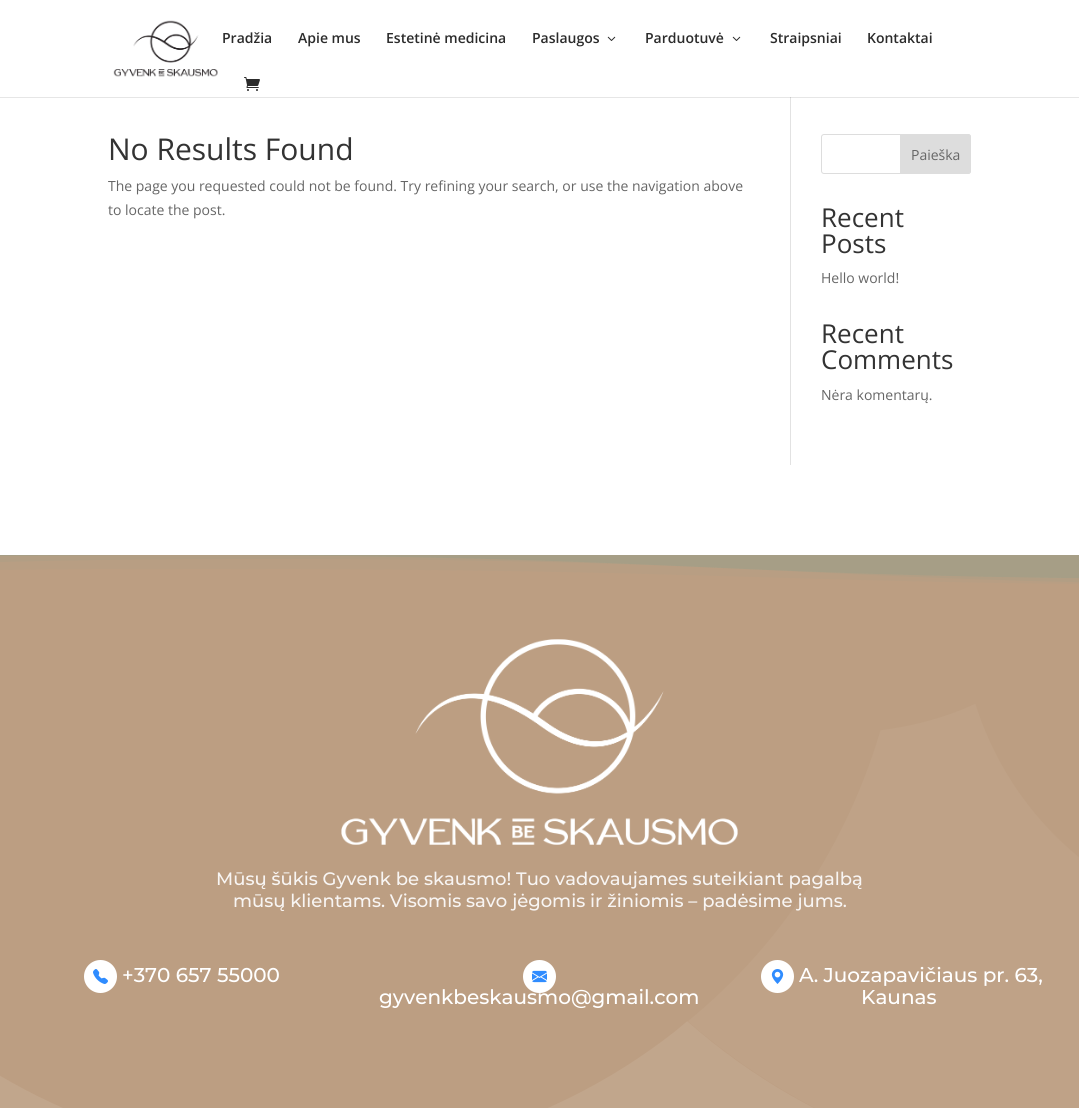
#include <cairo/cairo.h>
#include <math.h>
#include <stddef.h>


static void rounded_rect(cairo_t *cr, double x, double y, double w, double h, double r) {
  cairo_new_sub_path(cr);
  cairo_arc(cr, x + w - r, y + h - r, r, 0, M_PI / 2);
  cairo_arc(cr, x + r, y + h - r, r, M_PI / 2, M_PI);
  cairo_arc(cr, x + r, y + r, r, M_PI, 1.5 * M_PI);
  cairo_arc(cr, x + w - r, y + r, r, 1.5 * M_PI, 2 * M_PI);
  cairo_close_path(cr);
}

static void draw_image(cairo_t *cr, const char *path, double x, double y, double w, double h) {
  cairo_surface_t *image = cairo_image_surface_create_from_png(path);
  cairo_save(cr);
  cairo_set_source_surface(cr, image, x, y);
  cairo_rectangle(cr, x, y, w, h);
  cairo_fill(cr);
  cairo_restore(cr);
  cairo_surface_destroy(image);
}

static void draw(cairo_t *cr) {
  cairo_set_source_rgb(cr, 1, 1, 1);
  cairo_paint(cr);
  cairo_set_source_rgb(cr, 230 / 255.0, 230 / 255.0, 230 / 255.0);
  cairo_rectangle(cr, 0, 97, 1079, 1);
  cairo_fill(cr);
  draw_image(cr, "images/1.png", 113, 20, 105, 57);
  draw_image(cr, "images/2.png", 607, 36, 9, 5);
  draw_image(cr, "images/2.png", 732, 36, 9, 5);
  draw_image(cr, "images/3.png", 244, 77, 16, 14);
  cairo_set_source_rgb(cr, 226 / 255.0, 226 / 255.0, 226 / 255.0);
  cairo_rectangle(cr, 790, 98, 1, 367);
  cairo_fill(cr);
  cairo_set_source_rgb(cr, 203 / 255.0, 203 / 255.0, 203 / 255.0);
  cairo_rectangle(cr, 790, 97, 1, 1);
  cairo_fill(cr);
  rounded_rect(cr, 821.5, 134.5, 149, 39, 2.5);
  cairo_set_source_rgb(cr, 221 / 255.0, 221 / 255.0, 221 / 255.0);
  cairo_set_line_width(cr, 1);
  cairo_stroke(cr);
  cairo_new_path(cr);
  cairo_move_to(cr, 900.5, 134.5);
  cairo_line_to(cr, 968, 134.5);
  cairo_curve_to(cr, 969.5, 134.5, 970.5, 135.5, 970.5, 137);
  cairo_line_to(cr, 970.5, 171);
  cairo_curve_to(cr, 970.5, 172.5, 969.5, 173.5, 968, 173.5);
  cairo_line_to(cr, 900.5, 173.5);
  cairo_close_path(cr);
  cairo_fill_preserve(cr);
  cairo_stroke(cr);
  cairo_set_source_rgb(cr, 188 / 255.0, 158 / 255.0, 130 / 255.0);
  cairo_rectangle(cr, 0, 569, 1079, 539);
  cairo_fill(cr);
  cairo_set_source_rgb(cr, 184 / 255.0, 158 / 255.0, 131 / 255.0);
  cairo_new_path(cr);
  cairo_move_to(cr, 0, 570);
  cairo_curve_to(cr, 61, 569, 131, 569, 213, 569);
  cairo_curve_to(cr, 753, 569, 753, 585, 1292, 585);
  cairo_curve_to(cr, 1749, 585, 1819, 573, 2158, 570);
  cairo_line_to(cr, 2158, 555);
  cairo_line_to(cr, 0, 555);
  cairo_close_path(cr);
  cairo_fill(cr);
  cairo_set_source_rgb(cr, 178 / 255.0, 158 / 255.0, 132 / 255.0);
  cairo_new_path(cr);
  cairo_move_to(cr, 0, 562);
  cairo_curve_to(cr, 73, 560, 159, 559, 267, 559);
  cairo_curve_to(cr, 807, 559, 807, 585, 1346, 585);
  cairo_curve_to(cr, 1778, 585, 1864, 568, 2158, 562);
  cairo_line_to(cr, 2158, 555);
  cairo_line_to(cr, 0, 555);
  cairo_close_path(cr);
  cairo_fill(cr);
  cairo_set_source_rgba(cr, 0, 165 / 255.0, 157 / 255.0, 0.07);
  cairo_new_path(cr);
  cairo_move_to(cr, 0, 555);
  cairo_line_to(cr, 0, 556);
  cairo_line_to(cr, 159, 555);
  cairo_curve_to(cr, 699, 555, 699, 579, 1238, 579);
  cairo_curve_to(cr, 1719, 579, 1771, 560, 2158, 556);
  cairo_line_to(cr, 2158, 555);
  cairo_close_path(cr);
  cairo_fill(cr);
  draw_image(cr, "images/4.png", 0, 704, 1079, 404);
  draw_image(cr, "images/5.png", 341, 639, 397, 206);
  cairo_set_source_rgb(cr, 1, 1, 1);
  cairo_arc(cr, 100.5, 976.5, 16.5, 0, 2 * M_PI);
  cairo_fill(cr);
  draw_image(cr, "images/6.png", 93, 969, 15, 15);
  cairo_arc(cr, 777.5, 976.5, 16.5, 0, 2 * M_PI);
  cairo_fill(cr);
  draw_image(cr, "images/7.png", 771, 969, 13, 15);
  cairo_arc(cr, 539.5, 976.5, 16.5, 0, 2 * M_PI);
  cairo_fill(cr);
  draw_image(cr, "images/8.png", 532, 970, 15, 13);
  cairo_select_font_face(cr, "Open Sans SemiBold", CAIRO_FONT_SLANT_NORMAL, CAIRO_FONT_WEIGHT_NORMAL);
  cairo_set_font_size(cr, 14);
  cairo_set_source_rgb(cr, 43 / 255.0, 43 / 255.0, 43 / 255.0);
  cairo_move_to(cr, 222, 43);
  cairo_show_text(cr, "Pradžia");
  cairo_move_to(cr, 298, 43);
  cairo_show_text(cr, "Apie mus");
  cairo_move_to(cr, 386, 43);
  cairo_show_text(cr, "Estetinė medicina");
  cairo_move_to(cr, 532, 43);
  cairo_show_text(cr, "Paslaugos");
  cairo_move_to(cr, 645, 43);
  cairo_show_text(cr, "Parduotuvė");
  cairo_move_to(cr, 770, 43);
  cairo_show_text(cr, "Straipsniai");
  cairo_move_to(cr, 867, 43);
  cairo_show_text(cr, "Kontaktai");
  cairo_select_font_face(cr, "Open Sans", CAIRO_FONT_SLANT_NORMAL, CAIRO_FONT_WEIGHT_NORMAL);
  cairo_set_font_size(cr, 30);
  cairo_set_source_rgb(cr, 51 / 255.0, 51 / 255.0, 51 / 255.0);
  cairo_move_to(cr, 108, 160);
  cairo_show_text(cr, "No Results Found");
  cairo_set_font_size(cr, 14);
  cairo_set_source_rgb(cr, 102 / 255.0, 102 / 255.0, 102 / 255.0);
  cairo_move_to(cr, 108, 191);
  cairo_show_text(cr, "The page you requested could not be found. Try refining your search, or use the navigation above");
  cairo_move_to(cr, 108, 215);
  cairo_show_text(cr, "to locate the post.");
  cairo_move_to(cr, 911, 160);
  cairo_show_text(cr, "Paieška");
  cairo_set_font_size(cr, 26);
  cairo_set_source_rgb(cr, 51 / 255.0, 51 / 255.0, 51 / 255.0);
  cairo_move_to(cr, 821, 227);
  cairo_show_text(cr, "Recent");
  cairo_move_to(cr, 821, 253);
  cairo_show_text(cr, "Posts");
  cairo_set_font_size(cr, 14);
  cairo_set_source_rgb(cr, 102 / 255.0, 102 / 255.0, 102 / 255.0);
  cairo_move_to(cr, 821, 283);
  cairo_show_text(cr, "Hello world!");
  cairo_set_font_size(cr, 26);
  cairo_set_source_rgb(cr, 51 / 255.0, 51 / 255.0, 51 / 255.0);
  cairo_move_to(cr, 821, 343);
  cairo_show_text(cr, "Recent");
  cairo_move_to(cr, 821, 369);
  cairo_show_text(cr, "Comments");
  cairo_set_font_size(cr, 14);
  cairo_set_source_rgb(cr, 102 / 255.0, 102 / 255.0, 102 / 255.0);
  cairo_move_to(cr, 821, 400);
  cairo_show_text(cr, "Nėra komentarų.");
  cairo_select_font_face(cr, "Montserrat Medium", CAIRO_FONT_SLANT_NORMAL, CAIRO_FONT_WEIGHT_NORMAL);
  cairo_set_font_size(cr, 18);
  cairo_set_source_rgb(cr, 248 / 255.0, 245 / 255.0, 243 / 255.0);
  cairo_move_to(cr, 216, 885);
  cairo_show_text(cr, "Mūsų šūkis Gyvenk be skausmo! Tuo vadovaujames suteikiant pagalbą");
  cairo_move_to(cr, 233, 907);
  cairo_show_text(cr, "mūsų klientams. Visomis savo jėgomis ir žiniomis – padėsime jums.");
  cairo_set_font_size(cr, 20);
  cairo_set_source_rgb(cr, 1, 1, 1);
  cairo_move_to(cr, 122, 982);
  cairo_show_text(cr, "+370 657 55000");
  cairo_move_to(cr, 799, 982);
  cairo_show_text(cr, "A. Juozapavičiaus pr. 63,");
  cairo_move_to(cr, 861, 1004);
  cairo_show_text(cr, "Kaunas");
  cairo_move_to(cr, 379, 1004);
  cairo_show_text(cr, "gyvenkbeskausmo@gmail.com");
}

int main(void) {
  cairo_surface_t *surface = cairo_image_surface_create(CAIRO_FORMAT_RGB24, 1079, 1108);
  cairo_t *cr = cairo_create(surface);
  cairo_font_options_t *options = cairo_font_options_create();
  cairo_font_options_set_hint_metrics(options, CAIRO_HINT_METRICS_OFF);
  cairo_font_options_set_hint_style(options, CAIRO_HINT_STYLE_NONE);
  cairo_set_font_options(cr, options);
  cairo_set_miter_limit(cr, 4);
  draw(cr);
  cairo_surface_write_to_png(surface, "out.png");
  cairo_font_options_destroy(options);
  cairo_destroy(cr);
  cairo_surface_destroy(surface);
  return 0;
}
